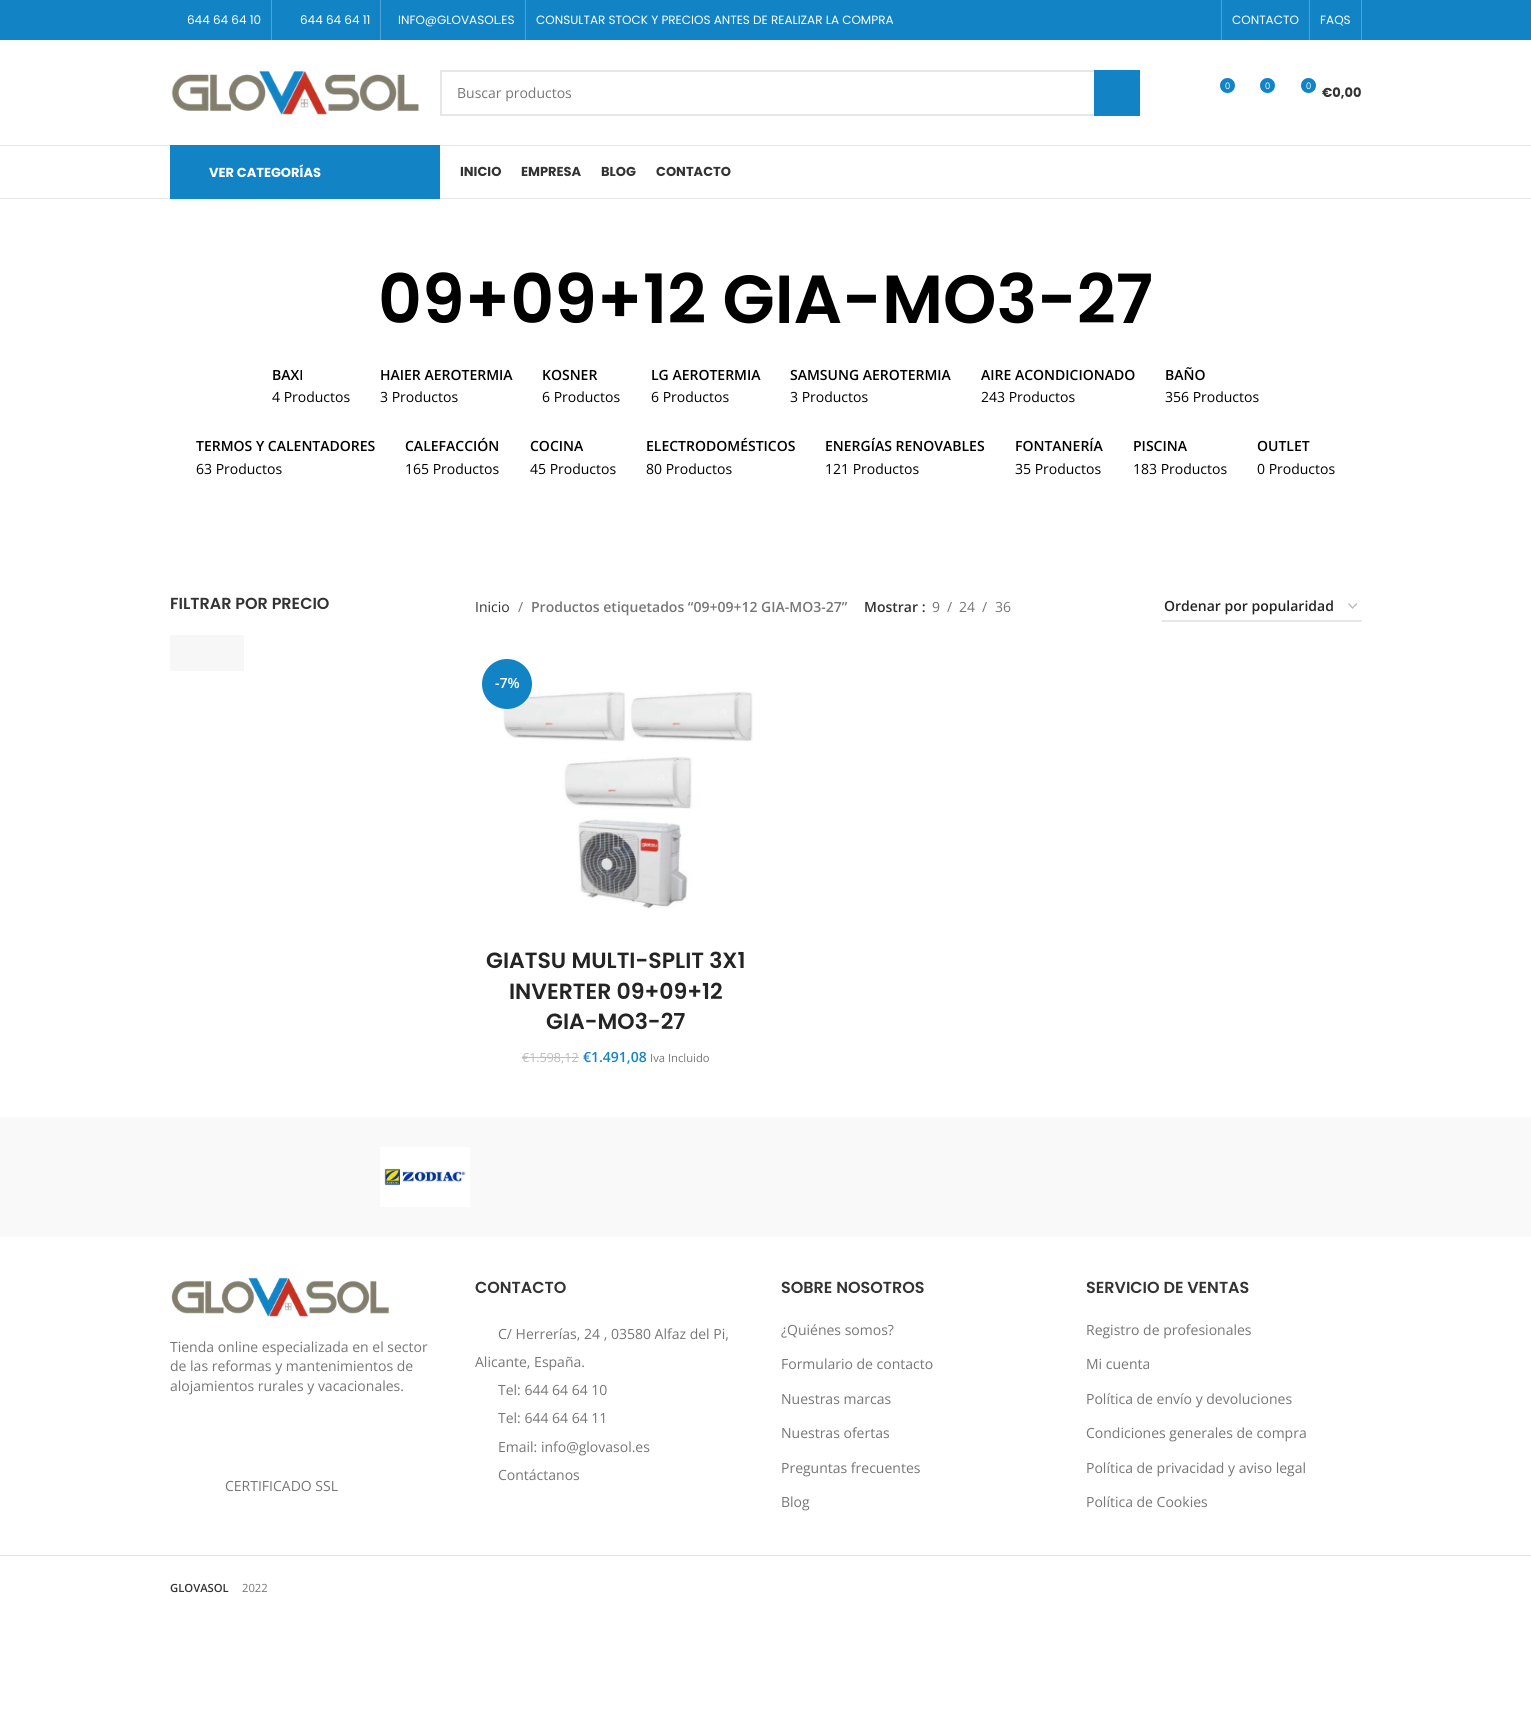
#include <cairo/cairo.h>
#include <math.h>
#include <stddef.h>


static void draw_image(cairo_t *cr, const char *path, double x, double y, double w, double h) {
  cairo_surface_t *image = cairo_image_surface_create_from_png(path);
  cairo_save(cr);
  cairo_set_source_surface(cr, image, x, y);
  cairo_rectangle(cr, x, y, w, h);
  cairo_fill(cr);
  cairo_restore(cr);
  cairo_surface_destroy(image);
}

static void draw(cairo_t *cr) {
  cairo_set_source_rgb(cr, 1, 1, 1);
  cairo_paint(cr);
  cairo_set_source_rgb(cr, 18 / 255.0, 132 / 255.0, 198 / 255.0);
  cairo_rectangle(cr, 0, 0, 1531, 40);
  cairo_fill(cr);
  cairo_set_source_rgb(cr, 77 / 255.0, 163 / 255.0, 212 / 255.0);
  cairo_rectangle(cr, 271, 0, 1, 40);
  cairo_fill(cr);
  cairo_rectangle(cr, 380, 0, 1, 40);
  cairo_fill(cr);
  cairo_rectangle(cr, 525, 0, 1, 40);
  cairo_fill(cr);
  cairo_rectangle(cr, 1221, 0, 1, 40);
  cairo_fill(cr);
  cairo_rectangle(cr, 1309, 0, 1, 40);
  cairo_fill(cr);
  cairo_rectangle(cr, 1361, 0, 1, 40);
  cairo_fill(cr);
  cairo_set_source_rgb(cr, 232 / 255.0, 232 / 255.0, 232 / 255.0);
  cairo_rectangle(cr, 0, 145, 1531, 1);
  cairo_fill(cr);
  draw_image(cr, "images/1.png", 171, 70, 249, 45);
  cairo_rectangle(cr, 441, 71, 698, 44);
  cairo_set_source_rgb(cr, 230 / 255.0, 230 / 255.0, 230 / 255.0);
  cairo_stroke(cr);
  cairo_set_source_rgb(cr, 18 / 255.0, 132 / 255.0, 198 / 255.0);
  cairo_rectangle(cr, 1094, 70, 46, 46);
  cairo_fill(cr);
  cairo_arc(cr, 1227.5, 85.5, 7.5, 0, 2 * M_PI);
  cairo_fill(cr);
  cairo_arc(cr, 1267.5, 85.5, 7.5, 0, 2 * M_PI);
  cairo_fill(cr);
  cairo_arc(cr, 1308.5, 85.5, 7.5, 0, 2 * M_PI);
  cairo_fill(cr);
  cairo_set_source_rgb(cr, 232 / 255.0, 232 / 255.0, 232 / 255.0);
  cairo_rectangle(cr, 0, 198, 1531, 1);
  cairo_fill(cr);
  cairo_set_source_rgb(cr, 18 / 255.0, 132 / 255.0, 198 / 255.0);
  cairo_rectangle(cr, 170, 145, 270, 54);
  cairo_fill(cr);
  cairo_set_source_rgb(cr, 247 / 255.0, 247 / 255.0, 247 / 255.0);
  cairo_rectangle(cr, 170, 635, 74, 36);
  cairo_fill(cr);
  cairo_new_path(cr);
  cairo_move_to(cr, 1348.5, 603.5);
  cairo_line_to(cr, 1352.5, 608);
  cairo_line_to(cr, 1357, 603.5);
  cairo_set_source_rgb(cr, 187 / 255.0, 187 / 255.0, 187 / 255.0);
  cairo_set_line_width(cr, 1.4);
  cairo_stroke(cr);
  cairo_set_source_rgb(cr, 230 / 255.0, 230 / 255.0, 230 / 255.0);
  cairo_rectangle(cr, 1162, 620, 200, 2);
  cairo_fill(cr);
  draw_image(cr, "images/2.png", 503, 691, 250, 218);
  cairo_set_source_rgb(cr, 18 / 255.0, 132 / 255.0, 198 / 255.0);
  cairo_arc(cr, 507, 684, 25, 0, 2 * M_PI);
  cairo_fill(cr);
  cairo_set_source_rgb(cr, 187 / 255.0, 187 / 255.0, 187 / 255.0);
  cairo_rectangle(cr, 522, 1057, 57, 1);
  cairo_fill(cr);
  cairo_set_source_rgb(cr, 249 / 255.0, 249 / 255.0, 249 / 255.0);
  cairo_rectangle(cr, 0, 1117, 1531, 120);
  cairo_fill(cr);
  draw_image(cr, "images/3.png", 380, 1147, 90, 60);
  draw_image(cr, "images/4.png", 171, 1277, 219, 40);
  cairo_set_source_rgb(cr, 228 / 255.0, 228 / 255.0, 228 / 255.0);
  cairo_rectangle(cr, 0, 1555, 1531, 1);
  cairo_fill(cr);
  cairo_select_font_face(cr, "Poppins", CAIRO_FONT_SLANT_NORMAL, CAIRO_FONT_WEIGHT_NORMAL);
  cairo_set_font_size(cr, 12);
  cairo_set_source_rgb(cr, 1, 1, 1);
  cairo_move_to(cr, 187, 24);
  cairo_show_text(cr, "644 64 64 10");
  cairo_move_to(cr, 300, 24);
  cairo_show_text(cr, "644 64 64 11");
  cairo_move_to(cr, 398, 24);
  cairo_show_text(cr, "INFO@GLOVASOL.ES");
  cairo_move_to(cr, 536, 24);
  cairo_show_text(cr, "CONSULTAR STOCK Y PRECIOS ANTES DE REALIZAR LA COMPRA");
  cairo_move_to(cr, 1232, 24);
  cairo_show_text(cr, "CONTACTO");
  cairo_move_to(cr, 1320, 24);
  cairo_show_text(cr, "FAQS");
  cairo_select_font_face(cr, "Open Sans", CAIRO_FONT_SLANT_NORMAL, CAIRO_FONT_WEIGHT_NORMAL);
  cairo_set_font_size(cr, 14);
  cairo_set_source_rgb(cr, 118 / 255.0, 118 / 255.0, 118 / 255.0);
  cairo_move_to(cr, 457, 98);
  cairo_show_text(cr, "Buscar productos");
  cairo_set_font_size(cr, 9);
  cairo_set_source_rgb(cr, 1, 1, 1);
  cairo_move_to(cr, 1225, 89);
  cairo_show_text(cr, "0");
  cairo_move_to(cr, 1265, 89);
  cairo_show_text(cr, "0");
  cairo_move_to(cr, 1306, 89);
  cairo_show_text(cr, "0");
  cairo_select_font_face(cr, "Poppins", CAIRO_FONT_SLANT_NORMAL, CAIRO_FONT_WEIGHT_BOLD);
  cairo_set_font_size(cr, 13);
  cairo_set_source_rgb(cr, 51 / 255.0, 51 / 255.0, 51 / 255.0);
  cairo_move_to(cr, 1322, 97);
  cairo_show_text(cr, "€0,00");
  cairo_set_source_rgb(cr, 1, 1, 1);
  cairo_move_to(cr, 209, 177);
  cairo_show_text(cr, "VER CATEGORÍAS");
  cairo_set_source_rgb(cr, 51 / 255.0, 51 / 255.0, 51 / 255.0);
  cairo_move_to(cr, 460, 176);
  cairo_show_text(cr, "INICIO");
  cairo_move_to(cr, 521, 176);
  cairo_show_text(cr, "EMPRESA");
  cairo_move_to(cr, 601, 176);
  cairo_show_text(cr, "BLOG");
  cairo_move_to(cr, 656, 176);
  cairo_show_text(cr, "CONTACTO");
  cairo_select_font_face(cr, "Poppins SemiBold", CAIRO_FONT_SLANT_NORMAL, CAIRO_FONT_WEIGHT_NORMAL);
  cairo_set_font_size(cr, 68);
  cairo_set_source_rgb(cr, 0, 0, 0);
  cairo_move_to(cr, 378, 323);
  cairo_show_text(cr, "09+09+12 GIA-MO3-27");
  cairo_select_font_face(cr, "Open Sans SemiBold", CAIRO_FONT_SLANT_NORMAL, CAIRO_FONT_WEIGHT_NORMAL);
  cairo_set_font_size(cr, 14);
  cairo_move_to(cr, 272, 380);
  cairo_show_text(cr, "BAXI");
  cairo_select_font_face(cr, "Open Sans", CAIRO_FONT_SLANT_NORMAL, CAIRO_FONT_WEIGHT_NORMAL);
  cairo_move_to(cr, 272, 402);
  cairo_show_text(cr, "4 Productos");
  cairo_select_font_face(cr, "Open Sans SemiBold", CAIRO_FONT_SLANT_NORMAL, CAIRO_FONT_WEIGHT_NORMAL);
  cairo_move_to(cr, 380, 380);
  cairo_show_text(cr, "HAIER AEROTERMIA");
  cairo_select_font_face(cr, "Open Sans", CAIRO_FONT_SLANT_NORMAL, CAIRO_FONT_WEIGHT_NORMAL);
  cairo_move_to(cr, 380, 402);
  cairo_show_text(cr, "3 Productos");
  cairo_select_font_face(cr, "Open Sans SemiBold", CAIRO_FONT_SLANT_NORMAL, CAIRO_FONT_WEIGHT_NORMAL);
  cairo_move_to(cr, 542, 380);
  cairo_show_text(cr, "KOSNER");
  cairo_select_font_face(cr, "Open Sans", CAIRO_FONT_SLANT_NORMAL, CAIRO_FONT_WEIGHT_NORMAL);
  cairo_move_to(cr, 542, 402);
  cairo_show_text(cr, "6 Productos");
  cairo_select_font_face(cr, "Open Sans SemiBold", CAIRO_FONT_SLANT_NORMAL, CAIRO_FONT_WEIGHT_NORMAL);
  cairo_move_to(cr, 651, 380);
  cairo_show_text(cr, "LG AEROTERMIA");
  cairo_select_font_face(cr, "Open Sans", CAIRO_FONT_SLANT_NORMAL, CAIRO_FONT_WEIGHT_NORMAL);
  cairo_move_to(cr, 651, 402);
  cairo_show_text(cr, "6 Productos");
  cairo_select_font_face(cr, "Open Sans SemiBold", CAIRO_FONT_SLANT_NORMAL, CAIRO_FONT_WEIGHT_NORMAL);
  cairo_move_to(cr, 790, 380);
  cairo_show_text(cr, "SAMSUNG AEROTERMIA");
  cairo_select_font_face(cr, "Open Sans", CAIRO_FONT_SLANT_NORMAL, CAIRO_FONT_WEIGHT_NORMAL);
  cairo_move_to(cr, 790, 402);
  cairo_show_text(cr, "3 Productos");
  cairo_select_font_face(cr, "Open Sans SemiBold", CAIRO_FONT_SLANT_NORMAL, CAIRO_FONT_WEIGHT_NORMAL);
  cairo_move_to(cr, 981, 380);
  cairo_show_text(cr, "AIRE ACONDICIONADO");
  cairo_select_font_face(cr, "Open Sans", CAIRO_FONT_SLANT_NORMAL, CAIRO_FONT_WEIGHT_NORMAL);
  cairo_move_to(cr, 981, 402);
  cairo_show_text(cr, "243 Productos");
  cairo_select_font_face(cr, "Open Sans SemiBold", CAIRO_FONT_SLANT_NORMAL, CAIRO_FONT_WEIGHT_NORMAL);
  cairo_move_to(cr, 1165, 380);
  cairo_show_text(cr, "BAÑO");
  cairo_select_font_face(cr, "Open Sans", CAIRO_FONT_SLANT_NORMAL, CAIRO_FONT_WEIGHT_NORMAL);
  cairo_move_to(cr, 1165, 402);
  cairo_show_text(cr, "356 Productos");
  cairo_select_font_face(cr, "Open Sans SemiBold", CAIRO_FONT_SLANT_NORMAL, CAIRO_FONT_WEIGHT_NORMAL);
  cairo_move_to(cr, 196, 451);
  cairo_show_text(cr, "TERMOS Y CALENTADORES");
  cairo_select_font_face(cr, "Open Sans", CAIRO_FONT_SLANT_NORMAL, CAIRO_FONT_WEIGHT_NORMAL);
  cairo_move_to(cr, 196, 474);
  cairo_show_text(cr, "63 Productos");
  cairo_select_font_face(cr, "Open Sans SemiBold", CAIRO_FONT_SLANT_NORMAL, CAIRO_FONT_WEIGHT_NORMAL);
  cairo_move_to(cr, 405, 451);
  cairo_show_text(cr, "CALEFACCIÓN");
  cairo_select_font_face(cr, "Open Sans", CAIRO_FONT_SLANT_NORMAL, CAIRO_FONT_WEIGHT_NORMAL);
  cairo_move_to(cr, 405, 474);
  cairo_show_text(cr, "165 Productos");
  cairo_select_font_face(cr, "Open Sans SemiBold", CAIRO_FONT_SLANT_NORMAL, CAIRO_FONT_WEIGHT_NORMAL);
  cairo_move_to(cr, 530, 451);
  cairo_show_text(cr, "COCINA");
  cairo_select_font_face(cr, "Open Sans", CAIRO_FONT_SLANT_NORMAL, CAIRO_FONT_WEIGHT_NORMAL);
  cairo_move_to(cr, 530, 474);
  cairo_show_text(cr, "45 Productos");
  cairo_select_font_face(cr, "Open Sans SemiBold", CAIRO_FONT_SLANT_NORMAL, CAIRO_FONT_WEIGHT_NORMAL);
  cairo_move_to(cr, 646, 451);
  cairo_show_text(cr, "ELECTRODOMÉSTICOS");
  cairo_select_font_face(cr, "Open Sans", CAIRO_FONT_SLANT_NORMAL, CAIRO_FONT_WEIGHT_NORMAL);
  cairo_move_to(cr, 646, 474);
  cairo_show_text(cr, "80 Productos");
  cairo_select_font_face(cr, "Open Sans SemiBold", CAIRO_FONT_SLANT_NORMAL, CAIRO_FONT_WEIGHT_NORMAL);
  cairo_move_to(cr, 825, 451);
  cairo_show_text(cr, "ENERGÍAS RENOVABLES");
  cairo_select_font_face(cr, "Open Sans", CAIRO_FONT_SLANT_NORMAL, CAIRO_FONT_WEIGHT_NORMAL);
  cairo_move_to(cr, 825, 474);
  cairo_show_text(cr, "121 Productos");
  cairo_select_font_face(cr, "Open Sans SemiBold", CAIRO_FONT_SLANT_NORMAL, CAIRO_FONT_WEIGHT_NORMAL);
  cairo_move_to(cr, 1015, 451);
  cairo_show_text(cr, "FONTANERÍA");
  cairo_select_font_face(cr, "Open Sans", CAIRO_FONT_SLANT_NORMAL, CAIRO_FONT_WEIGHT_NORMAL);
  cairo_move_to(cr, 1015, 474);
  cairo_show_text(cr, "35 Productos");
  cairo_select_font_face(cr, "Open Sans SemiBold", CAIRO_FONT_SLANT_NORMAL, CAIRO_FONT_WEIGHT_NORMAL);
  cairo_move_to(cr, 1133, 451);
  cairo_show_text(cr, "PISCINA");
  cairo_select_font_face(cr, "Open Sans", CAIRO_FONT_SLANT_NORMAL, CAIRO_FONT_WEIGHT_NORMAL);
  cairo_move_to(cr, 1133, 474);
  cairo_show_text(cr, "183 Productos");
  cairo_select_font_face(cr, "Open Sans SemiBold", CAIRO_FONT_SLANT_NORMAL, CAIRO_FONT_WEIGHT_NORMAL);
  cairo_move_to(cr, 1257, 451);
  cairo_show_text(cr, "OUTLET");
  cairo_select_font_face(cr, "Open Sans", CAIRO_FONT_SLANT_NORMAL, CAIRO_FONT_WEIGHT_NORMAL);
  cairo_move_to(cr, 1257, 474);
  cairo_show_text(cr, "0 Productos");
  cairo_select_font_face(cr, "Poppins SemiBold", CAIRO_FONT_SLANT_NORMAL, CAIRO_FONT_WEIGHT_NORMAL);
  cairo_set_font_size(cr, 16);
  cairo_set_source_rgb(cr, 51 / 255.0, 51 / 255.0, 51 / 255.0);
  cairo_move_to(cr, 170, 609);
  cairo_show_text(cr, "FILTRAR POR PRECIO");
  cairo_select_font_face(cr, "Open Sans", CAIRO_FONT_SLANT_NORMAL, CAIRO_FONT_WEIGHT_NORMAL);
  cairo_set_font_size(cr, 14);
  cairo_move_to(cr, 475, 612);
  cairo_show_text(cr, "Inicio");
  cairo_set_source_rgb(cr, 118 / 255.0, 118 / 255.0, 118 / 255.0);
  cairo_move_to(cr, 518, 612);
  cairo_show_text(cr, "/");
  cairo_select_font_face(cr, "Open Sans SemiBold", CAIRO_FONT_SLANT_NORMAL, CAIRO_FONT_WEIGHT_NORMAL);
  cairo_move_to(cr, 531, 612);
  cairo_show_text(cr, "Productos etiquetados “09+09+12 GIA-MO3-27”");
  cairo_set_source_rgb(cr, 51 / 255.0, 51 / 255.0, 51 / 255.0);
  cairo_move_to(cr, 864, 612);
  cairo_show_text(cr, "Mostrar :");
  cairo_select_font_face(cr, "Open Sans", CAIRO_FONT_SLANT_NORMAL, CAIRO_FONT_WEIGHT_NORMAL);
  cairo_set_source_rgb(cr, 118 / 255.0, 118 / 255.0, 118 / 255.0);
  cairo_move_to(cr, 932, 612);
  cairo_show_text(cr, "9");
  cairo_move_to(cr, 947, 612);
  cairo_show_text(cr, "/");
  cairo_move_to(cr, 959, 612);
  cairo_show_text(cr, "24");
  cairo_move_to(cr, 982, 612);
  cairo_show_text(cr, "/");
  cairo_move_to(cr, 995, 612);
  cairo_show_text(cr, "36");
  cairo_select_font_face(cr, "Open Sans SemiBold", CAIRO_FONT_SLANT_NORMAL, CAIRO_FONT_WEIGHT_NORMAL);
  cairo_set_source_rgb(cr, 36 / 255.0, 36 / 255.0, 36 / 255.0);
  cairo_move_to(cr, 1164, 611);
  cairo_show_text(cr, "Ordenar por popularidad");
  cairo_set_source_rgb(cr, 1, 1, 1);
  cairo_move_to(cr, 495, 688);
  cairo_show_text(cr, "-7%");
  cairo_select_font_face(cr, "Poppins SemiBold", CAIRO_FONT_SLANT_NORMAL, CAIRO_FONT_WEIGHT_NORMAL);
  cairo_set_font_size(cr, 22);
  cairo_set_source_rgb(cr, 36 / 255.0, 36 / 255.0, 36 / 255.0);
  cairo_move_to(cr, 486, 968);
  cairo_show_text(cr, "GIATSU MULTI-SPLIT 3X1");
  cairo_move_to(cr, 509, 999);
  cairo_show_text(cr, "INVERTER 09+09+12");
  cairo_move_to(cr, 546, 1029);
  cairo_show_text(cr, "GIA-MO3-27");
  cairo_select_font_face(cr, "Open Sans", CAIRO_FONT_SLANT_NORMAL, CAIRO_FONT_WEIGHT_NORMAL);
  cairo_set_font_size(cr, 12.5);
  cairo_set_source_rgb(cr, 187 / 255.0, 187 / 255.0, 187 / 255.0);
  cairo_move_to(cr, 522, 1062);
  cairo_show_text(cr, "€1.598,12");
  cairo_select_font_face(cr, "Open Sans SemiBold", CAIRO_FONT_SLANT_NORMAL, CAIRO_FONT_WEIGHT_NORMAL);
  cairo_set_font_size(cr, 14);
  cairo_set_source_rgb(cr, 18 / 255.0, 132 / 255.0, 198 / 255.0);
  cairo_move_to(cr, 583, 1062);
  cairo_show_text(cr, "€1.491,08");
  cairo_select_font_face(cr, "Open Sans", CAIRO_FONT_SLANT_NORMAL, CAIRO_FONT_WEIGHT_NORMAL);
  cairo_set_font_size(cr, 11.25);
  cairo_set_source_rgb(cr, 118 / 255.0, 118 / 255.0, 118 / 255.0);
  cairo_move_to(cr, 650, 1062);
  cairo_show_text(cr, "Iva Incluido");
  cairo_set_font_size(cr, 14);
  cairo_move_to(cr, 170, 1352);
  cairo_show_text(cr, "Tienda online especializada en el sector");
  cairo_move_to(cr, 170, 1371);
  cairo_show_text(cr, "de las reformas y mantenimientos de");
  cairo_move_to(cr, 170, 1391);
  cairo_show_text(cr, "alojamientos rurales y vacacionales.");
  cairo_move_to(cr, 225, 1491);
  cairo_show_text(cr, "CERTIFICADO SSL");
  cairo_select_font_face(cr, "Poppins SemiBold", CAIRO_FONT_SLANT_NORMAL, CAIRO_FONT_WEIGHT_NORMAL);
  cairo_set_font_size(cr, 16);
  cairo_set_source_rgb(cr, 51 / 255.0, 51 / 255.0, 51 / 255.0);
  cairo_move_to(cr, 475, 1293);
  cairo_show_text(cr, "CONTACTO");
  cairo_select_font_face(cr, "Open Sans", CAIRO_FONT_SLANT_NORMAL, CAIRO_FONT_WEIGHT_NORMAL);
  cairo_set_font_size(cr, 14);
  cairo_set_source_rgb(cr, 118 / 255.0, 118 / 255.0, 118 / 255.0);
  cairo_move_to(cr, 498, 1339);
  cairo_show_text(cr, "C/ Herrerías, 24 , 03580 Alfaz del Pi,");
  cairo_move_to(cr, 475, 1367);
  cairo_show_text(cr, "Alicante, España.");
  cairo_move_to(cr, 498, 1395);
  cairo_show_text(cr, "Tel: 644 64 64 10");
  cairo_move_to(cr, 498, 1423);
  cairo_show_text(cr, "Tel: 644 64 64 11");
  cairo_move_to(cr, 498, 1452);
  cairo_show_text(cr, "Email: info@glovasol.es");
  cairo_move_to(cr, 498, 1480);
  cairo_show_text(cr, "Contáctanos");
  cairo_select_font_face(cr, "Poppins SemiBold", CAIRO_FONT_SLANT_NORMAL, CAIRO_FONT_WEIGHT_NORMAL);
  cairo_set_font_size(cr, 16);
  cairo_set_source_rgb(cr, 51 / 255.0, 51 / 255.0, 51 / 255.0);
  cairo_move_to(cr, 781, 1293);
  cairo_show_text(cr, "SOBRE NOSOTROS");
  cairo_select_font_face(cr, "Open Sans", CAIRO_FONT_SLANT_NORMAL, CAIRO_FONT_WEIGHT_NORMAL);
  cairo_set_font_size(cr, 14);
  cairo_set_source_rgb(cr, 118 / 255.0, 118 / 255.0, 118 / 255.0);
  cairo_move_to(cr, 781, 1335);
  cairo_show_text(cr, "¿Quiénes somos?");
  cairo_move_to(cr, 781, 1369);
  cairo_show_text(cr, "Formulario de contacto");
  cairo_move_to(cr, 781, 1404);
  cairo_show_text(cr, "Nuestras marcas");
  cairo_move_to(cr, 781, 1438);
  cairo_show_text(cr, "Nuestras ofertas");
  cairo_move_to(cr, 781, 1473);
  cairo_show_text(cr, "Preguntas frecuentes");
  cairo_move_to(cr, 781, 1507);
  cairo_show_text(cr, "Blog");
  cairo_select_font_face(cr, "Poppins SemiBold", CAIRO_FONT_SLANT_NORMAL, CAIRO_FONT_WEIGHT_NORMAL);
  cairo_set_font_size(cr, 16);
  cairo_set_source_rgb(cr, 51 / 255.0, 51 / 255.0, 51 / 255.0);
  cairo_move_to(cr, 1086, 1293);
  cairo_show_text(cr, "SERVICIO DE VENTAS");
  cairo_select_font_face(cr, "Open Sans", CAIRO_FONT_SLANT_NORMAL, CAIRO_FONT_WEIGHT_NORMAL);
  cairo_set_font_size(cr, 14);
  cairo_set_source_rgb(cr, 118 / 255.0, 118 / 255.0, 118 / 255.0);
  cairo_move_to(cr, 1086, 1335);
  cairo_show_text(cr, "Registro de profesionales");
  cairo_move_to(cr, 1086, 1369);
  cairo_show_text(cr, "Mi cuenta");
  cairo_move_to(cr, 1086, 1404);
  cairo_show_text(cr, "Política de envío y devoluciones");
  cairo_move_to(cr, 1086, 1438);
  cairo_show_text(cr, "Condiciones generales de compra");
  cairo_move_to(cr, 1086, 1473);
  cairo_show_text(cr, "Política de privacidad y aviso legal");
  cairo_move_to(cr, 1086, 1507);
  cairo_show_text(cr, "Política de Cookies");
  cairo_select_font_face(cr, "Open Sans SemiBold", CAIRO_FONT_SLANT_NORMAL, CAIRO_FONT_WEIGHT_NORMAL);
  cairo_set_font_size(cr, 11.25);
  cairo_set_source_rgb(cr, 51 / 255.0, 51 / 255.0, 51 / 255.0);
  cairo_move_to(cr, 170, 1592);
  cairo_show_text(cr, "GLOVASOL");
  cairo_select_font_face(cr, "Open Sans", CAIRO_FONT_SLANT_NORMAL, CAIRO_FONT_WEIGHT_NORMAL);
  cairo_set_source_rgb(cr, 118 / 255.0, 118 / 255.0, 118 / 255.0);
  cairo_move_to(cr, 242, 1592);
  cairo_show_text(cr, "2022");
}

int main(void) {
  cairo_surface_t *surface = cairo_image_surface_create(CAIRO_FORMAT_RGB24, 1531, 1732);
  cairo_t *cr = cairo_create(surface);
  cairo_font_options_t *options = cairo_font_options_create();
  cairo_font_options_set_hint_metrics(options, CAIRO_HINT_METRICS_OFF);
  cairo_font_options_set_hint_style(options, CAIRO_HINT_STYLE_NONE);
  cairo_set_font_options(cr, options);
  cairo_set_miter_limit(cr, 4);
  draw(cr);
  cairo_surface_write_to_png(surface, "out.png");
  cairo_font_options_destroy(options);
  cairo_destroy(cr);
  cairo_surface_destroy(surface);
  return 0;
}
